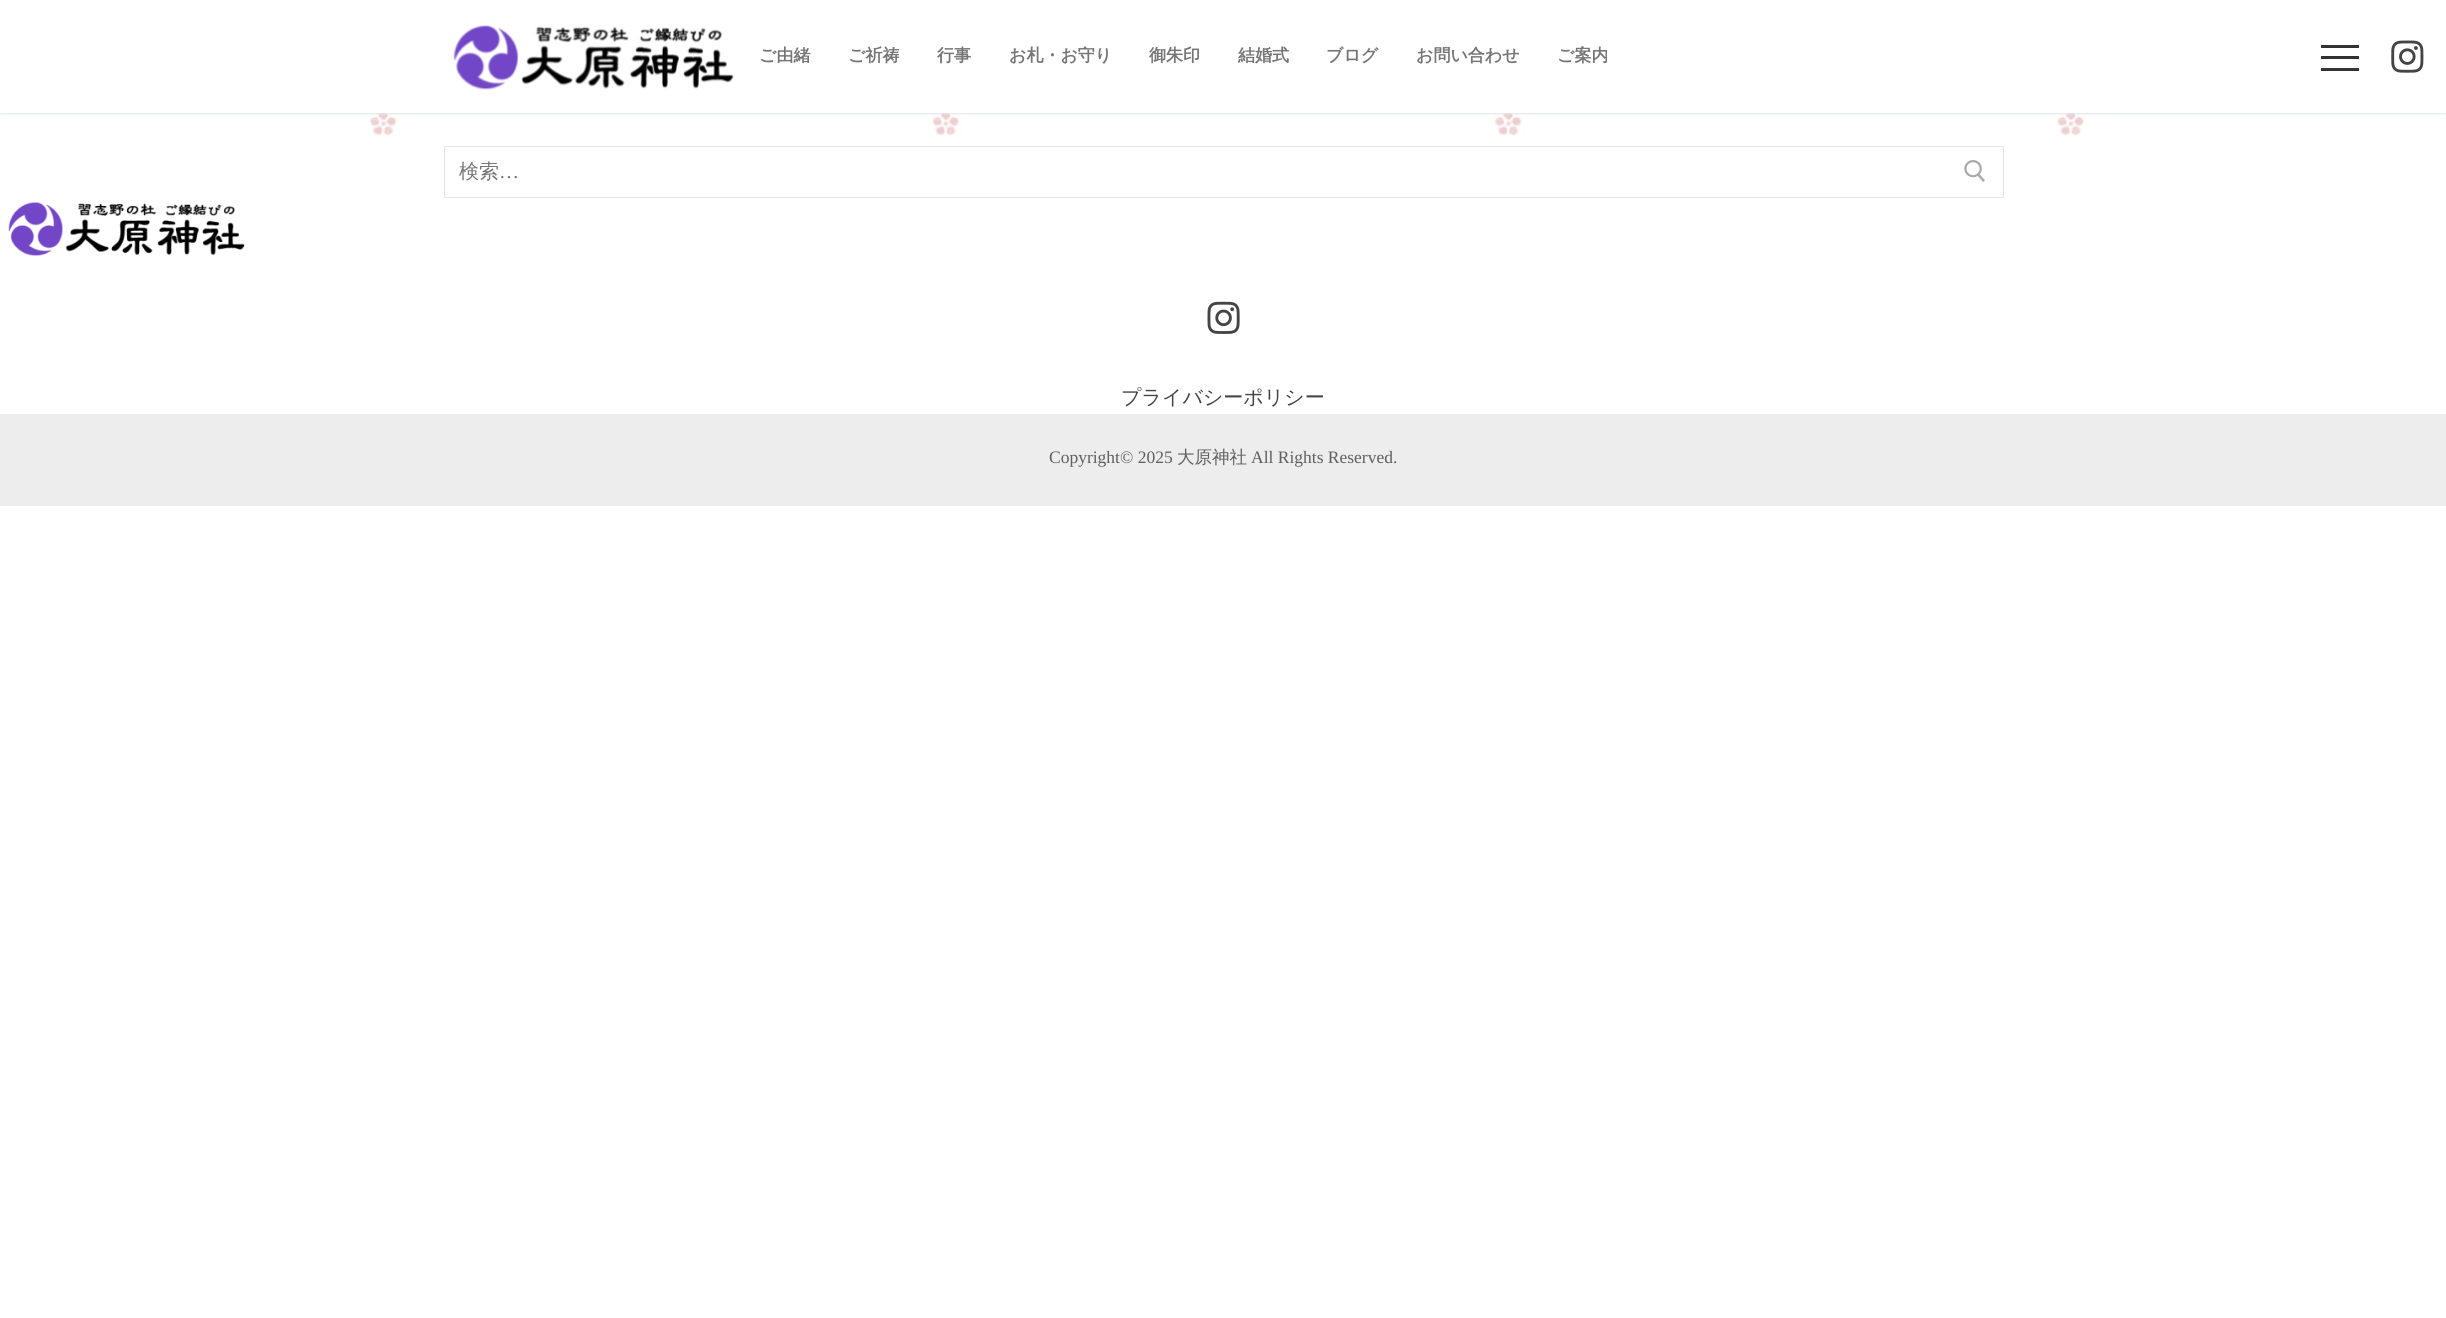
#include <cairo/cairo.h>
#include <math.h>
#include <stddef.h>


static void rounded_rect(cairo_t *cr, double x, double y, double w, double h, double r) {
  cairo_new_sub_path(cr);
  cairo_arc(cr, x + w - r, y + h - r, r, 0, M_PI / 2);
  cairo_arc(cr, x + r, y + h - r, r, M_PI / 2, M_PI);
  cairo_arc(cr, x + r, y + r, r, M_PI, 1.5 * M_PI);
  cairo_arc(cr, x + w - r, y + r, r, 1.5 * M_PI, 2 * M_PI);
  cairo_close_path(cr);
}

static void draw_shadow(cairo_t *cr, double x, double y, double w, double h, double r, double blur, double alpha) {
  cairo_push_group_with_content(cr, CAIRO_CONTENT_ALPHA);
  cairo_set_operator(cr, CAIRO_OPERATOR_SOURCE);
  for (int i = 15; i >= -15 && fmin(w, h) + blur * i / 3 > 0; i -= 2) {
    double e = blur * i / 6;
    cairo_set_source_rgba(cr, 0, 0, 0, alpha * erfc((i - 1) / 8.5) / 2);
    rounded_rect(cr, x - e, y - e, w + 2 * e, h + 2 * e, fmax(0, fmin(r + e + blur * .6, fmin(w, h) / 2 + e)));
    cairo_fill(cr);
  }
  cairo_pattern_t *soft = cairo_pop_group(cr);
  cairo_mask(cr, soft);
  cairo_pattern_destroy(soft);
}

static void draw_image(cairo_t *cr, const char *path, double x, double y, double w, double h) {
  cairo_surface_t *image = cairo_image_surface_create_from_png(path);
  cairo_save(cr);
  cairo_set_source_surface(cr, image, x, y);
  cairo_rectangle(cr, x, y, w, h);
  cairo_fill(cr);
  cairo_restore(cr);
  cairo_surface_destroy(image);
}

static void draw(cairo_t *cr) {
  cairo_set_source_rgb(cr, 1, 1, 1);
  cairo_paint(cr);
  draw_image(cr, "images/3.png", 328, 113, 1757, 23);
  cairo_set_source_rgb(cr, 225 / 255.0, 229 / 255.0, 234 / 255.0);
  draw_shadow(cr, 0, 1, 2446, 113, 0, 1, 1);
  cairo_set_source_rgb(cr, 1, 1, 1);
  cairo_rectangle(cr, 0, 0, 2446, 113);
  cairo_fill(cr);
  draw_image(cr, "images/1.png", 453, 25, 281, 65);
  cairo_set_source_rgb(cr, 51 / 255.0, 51 / 255.0, 51 / 255.0);
  cairo_rectangle(cr, 2321, 45, 38, 3);
  cairo_fill(cr);
  cairo_rectangle(cr, 2321, 56, 38, 3);
  cairo_fill(cr);
  cairo_rectangle(cr, 2321, 68, 38, 3);
  cairo_fill(cr);
  draw_image(cr, "images/2.png", 2391, 40, 33, 33);
  rounded_rect(cr, 444.5, 146.5, 1559, 51, 0.5);
  cairo_set_source_rgb(cr, 229 / 255.0, 229 / 255.0, 229 / 255.0);
  cairo_set_line_width(cr, 1);
  cairo_stroke(cr);
  draw_image(cr, "images/4.png", 1964, 160, 21, 22);
  draw_image(cr, "images/5.png", 8, 202, 237, 54);
  draw_image(cr, "images/6.png", 1207, 301, 33, 33);
  cairo_set_source_rgb(cr, 237 / 255.0, 237 / 255.0, 237 / 255.0);
  cairo_rectangle(cr, 0, 414, 2446, 92);
  cairo_fill(cr);
  cairo_select_font_face(cr, "WenQuanYi Zen Hei", CAIRO_FONT_SLANT_NORMAL, CAIRO_FONT_WEIGHT_BOLD);
  cairo_set_font_size(cr, 17);
  cairo_set_source_rgb(cr, 117 / 255.0, 117 / 255.0, 117 / 255.0);
  cairo_move_to(cr, 759, 61);
  cairo_show_text(cr, "ご由緒");
  cairo_move_to(cr, 848, 61);
  cairo_show_text(cr, "ご祈祷");
  cairo_move_to(cr, 937, 61);
  cairo_show_text(cr, "行事");
  cairo_move_to(cr, 1009, 61);
  cairo_show_text(cr, "お札・お守り");
  cairo_move_to(cr, 1149, 61);
  cairo_show_text(cr, "御朱印");
  cairo_move_to(cr, 1238, 61);
  cairo_show_text(cr, "結婚式");
  cairo_move_to(cr, 1326, 61);
  cairo_show_text(cr, "ブログ");
  cairo_move_to(cr, 1416, 61);
  cairo_show_text(cr, "お問い合わせ");
  cairo_move_to(cr, 1557, 61);
  cairo_show_text(cr, "ご案内");
  cairo_select_font_face(cr, "WenQuanYi Zen Hei Medium", CAIRO_FONT_SLANT_NORMAL, CAIRO_FONT_WEIGHT_NORMAL);
  cairo_set_font_size(cr, 20);
  cairo_move_to(cr, 459, 178);
  cairo_show_text(cr, "検索");
  cairo_select_font_face(cr, "Liberation Serif", CAIRO_FONT_SLANT_NORMAL, CAIRO_FONT_WEIGHT_NORMAL);
  cairo_move_to(cr, 499, 178);
  cairo_show_text(cr, "…");
  cairo_select_font_face(cr, "WenQuanYi Zen Hei Medium", CAIRO_FONT_SLANT_NORMAL, CAIRO_FONT_WEIGHT_NORMAL);
  cairo_set_source_rgb(cr, 68 / 255.0, 68 / 255.0, 68 / 255.0);
  cairo_move_to(cr, 1121, 404);
  cairo_show_text(cr, "プライバシーポリシー");
  cairo_select_font_face(cr, "Liberation Serif", CAIRO_FONT_SLANT_NORMAL, CAIRO_FONT_WEIGHT_NORMAL);
  cairo_set_font_size(cr, 17.5);
  cairo_set_source_rgb(cr, 95 / 255.0, 95 / 255.0, 95 / 255.0);
  cairo_move_to(cr, 1049, 463);
  cairo_show_text(cr, "Copyright© 2025");
  cairo_select_font_face(cr, "WenQuanYi Zen Hei Medium", CAIRO_FONT_SLANT_NORMAL, CAIRO_FONT_WEIGHT_NORMAL);
  cairo_move_to(cr, 1177, 463);
  cairo_show_text(cr, "大原神社");
  cairo_select_font_face(cr, "Liberation Serif", CAIRO_FONT_SLANT_NORMAL, CAIRO_FONT_WEIGHT_NORMAL);
  cairo_move_to(cr, 1251, 463);
  cairo_show_text(cr, "All Rights Reserved.");
}

int main(void) {
  cairo_surface_t *surface = cairo_image_surface_create(CAIRO_FORMAT_RGB24, 2446, 1318);
  cairo_t *cr = cairo_create(surface);
  cairo_font_options_t *options = cairo_font_options_create();
  cairo_font_options_set_hint_metrics(options, CAIRO_HINT_METRICS_OFF);
  cairo_font_options_set_hint_style(options, CAIRO_HINT_STYLE_NONE);
  cairo_set_font_options(cr, options);
  cairo_set_miter_limit(cr, 4);
  draw(cr);
  cairo_surface_write_to_png(surface, "out.png");
  cairo_font_options_destroy(options);
  cairo_destroy(cr);
  cairo_surface_destroy(surface);
  return 0;
}
